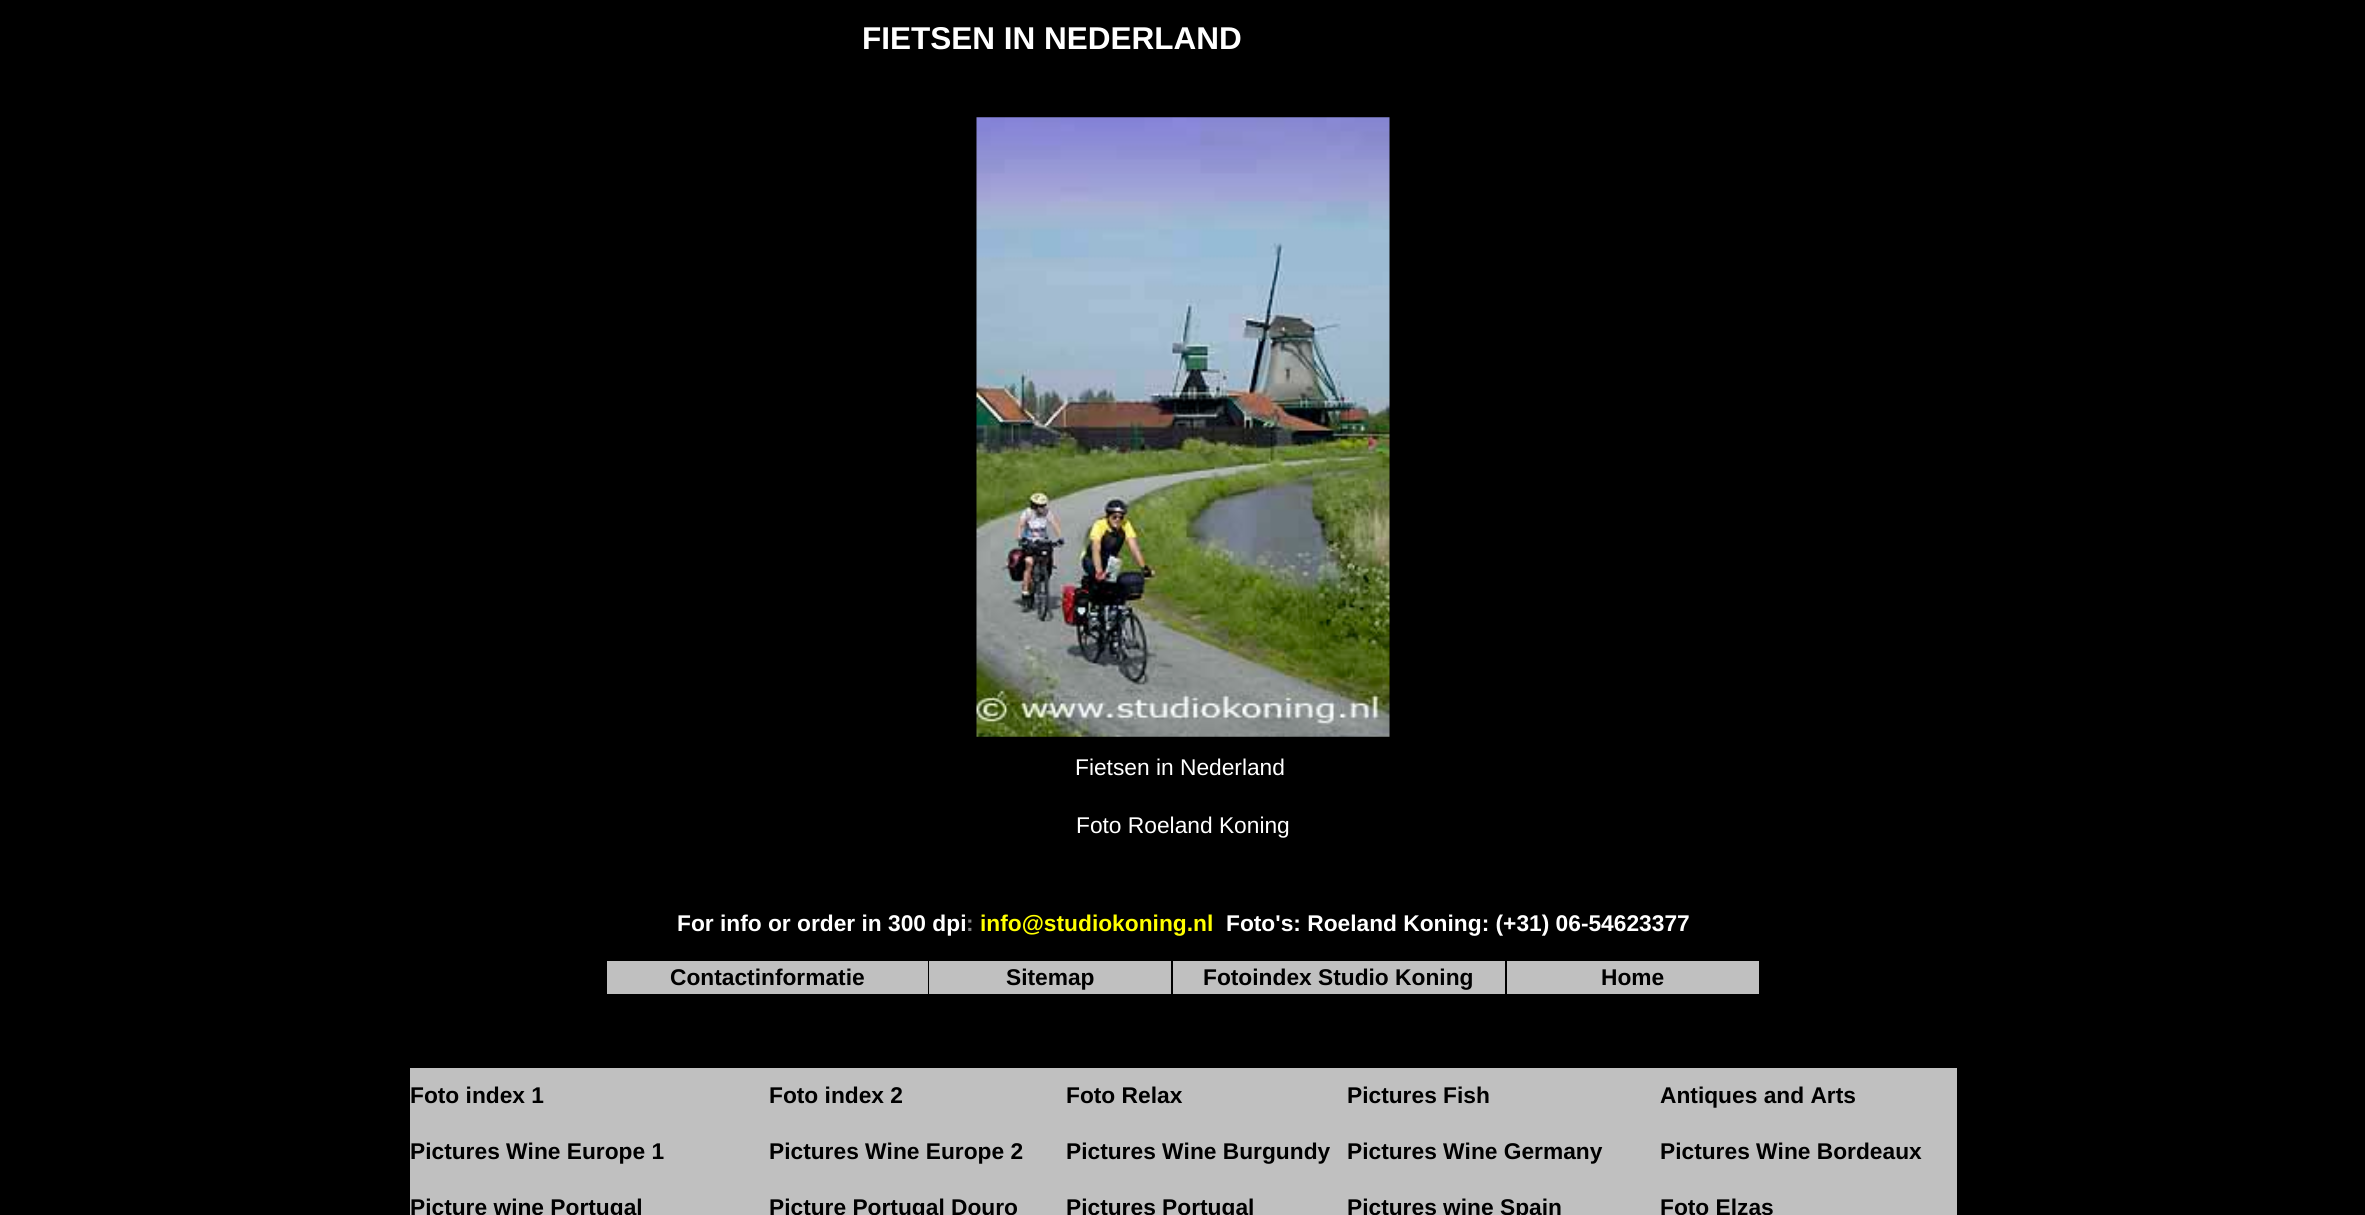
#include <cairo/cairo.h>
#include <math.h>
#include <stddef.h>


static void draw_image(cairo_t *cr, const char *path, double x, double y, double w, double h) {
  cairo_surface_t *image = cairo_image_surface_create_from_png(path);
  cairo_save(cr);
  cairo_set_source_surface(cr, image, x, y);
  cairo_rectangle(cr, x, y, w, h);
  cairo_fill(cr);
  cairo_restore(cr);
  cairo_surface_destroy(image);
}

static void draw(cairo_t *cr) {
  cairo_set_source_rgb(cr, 0, 0, 0);
  cairo_paint(cr);
  draw_image(cr, "images/1.png", 976, 117, 414, 620);
  cairo_set_source_rgb(cr, 192 / 255.0, 192 / 255.0, 192 / 255.0);
  cairo_rectangle(cr, 607, 961, 321, 33);
  cairo_fill(cr);
  cairo_rectangle(cr, 929, 961, 242, 33);
  cairo_fill(cr);
  cairo_rectangle(cr, 1173, 961, 332, 33);
  cairo_fill(cr);
  cairo_rectangle(cr, 1507, 961, 252, 33);
  cairo_fill(cr);
  cairo_rectangle(cr, 410, 1068, 1547, 56);
  cairo_fill(cr);
  cairo_rectangle(cr, 410, 1124, 1547, 56);
  cairo_fill(cr);
  cairo_rectangle(cr, 410, 1180, 1547, 35);
  cairo_fill(cr);
  cairo_select_font_face(cr, "Liberation Sans", CAIRO_FONT_SLANT_NORMAL, CAIRO_FONT_WEIGHT_BOLD);
  cairo_set_font_size(cr, 31.5);
  cairo_set_source_rgb(cr, 1, 1, 1);
  cairo_move_to(cr, 862, 49);
  cairo_show_text(cr, "FIETSEN IN NEDERLAND");
  cairo_select_font_face(cr, "Liberation Sans", CAIRO_FONT_SLANT_NORMAL, CAIRO_FONT_WEIGHT_NORMAL);
  cairo_set_font_size(cr, 22.75);
  cairo_move_to(cr, 1075, 775);
  cairo_show_text(cr, "Fietsen in Nederland");
  cairo_move_to(cr, 1076, 833);
  cairo_show_text(cr, "Foto Roeland Koning");
  cairo_select_font_face(cr, "Liberation Sans", CAIRO_FONT_SLANT_NORMAL, CAIRO_FONT_WEIGHT_BOLD);
  cairo_move_to(cr, 677, 931);
  cairo_show_text(cr, "For info or order in 300 dpi");
  cairo_set_source_rgb(cr, 128 / 255.0, 128 / 255.0, 128 / 255.0);
  cairo_move_to(cr, 966, 931);
  cairo_show_text(cr, ":");
  cairo_set_source_rgb(cr, 1, 1, 0);
  cairo_move_to(cr, 980, 931);
  cairo_show_text(cr, "info@studiokoning.nl");
  cairo_set_source_rgb(cr, 1, 1, 1);
  cairo_move_to(cr, 1226, 931);
  cairo_show_text(cr, "Foto's: Roeland Koning: (+31) 06-54623377");
  cairo_set_source_rgb(cr, 0, 0, 0);
  cairo_move_to(cr, 670, 985);
  cairo_show_text(cr, "Contactinformatie");
  cairo_move_to(cr, 1006, 985);
  cairo_show_text(cr, "Sitemap");
  cairo_move_to(cr, 1203, 985);
  cairo_show_text(cr, "Fotoindex Studio Koning");
  cairo_move_to(cr, 1601, 985);
  cairo_show_text(cr, "Home");
  cairo_move_to(cr, 410, 1103);
  cairo_show_text(cr, "Foto index 1");
  cairo_move_to(cr, 769, 1103);
  cairo_show_text(cr, "Foto index 2");
  cairo_move_to(cr, 1066, 1103);
  cairo_show_text(cr, "Foto Relax");
  cairo_move_to(cr, 1347, 1103);
  cairo_show_text(cr, "Pictures Fish");
  cairo_move_to(cr, 1660, 1103);
  cairo_show_text(cr, "Antiques and Arts");
  cairo_move_to(cr, 410, 1159);
  cairo_show_text(cr, "Pictures Wine Europe 1");
  cairo_move_to(cr, 769, 1159);
  cairo_show_text(cr, "Pictures Wine Europe 2");
  cairo_move_to(cr, 1066, 1159);
  cairo_show_text(cr, "Pictures Wine Burgundy");
  cairo_move_to(cr, 1347, 1159);
  cairo_show_text(cr, "Pictures Wine Germany");
  cairo_move_to(cr, 1660, 1159);
  cairo_show_text(cr, "Pictures Wine Bordeaux");
  cairo_move_to(cr, 410, 1215);
  cairo_show_text(cr, "Picture wine Portugal");
  cairo_move_to(cr, 769, 1215);
  cairo_show_text(cr, "Picture Portugal Douro");
  cairo_move_to(cr, 1066, 1215);
  cairo_show_text(cr, "Pictures Portugal");
  cairo_move_to(cr, 1347, 1215);
  cairo_show_text(cr, "Pictures wine Spain");
  cairo_move_to(cr, 1660, 1215);
  cairo_show_text(cr, "Foto Elzas");
}

int main(void) {
  cairo_surface_t *surface = cairo_image_surface_create(CAIRO_FORMAT_RGB24, 2365, 1215);
  cairo_t *cr = cairo_create(surface);
  cairo_font_options_t *options = cairo_font_options_create();
  cairo_font_options_set_hint_metrics(options, CAIRO_HINT_METRICS_OFF);
  cairo_font_options_set_hint_style(options, CAIRO_HINT_STYLE_NONE);
  cairo_set_font_options(cr, options);
  cairo_set_miter_limit(cr, 4);
  draw(cr);
  cairo_surface_write_to_png(surface, "out.png");
  cairo_font_options_destroy(options);
  cairo_destroy(cr);
  cairo_surface_destroy(surface);
  return 0;
}
